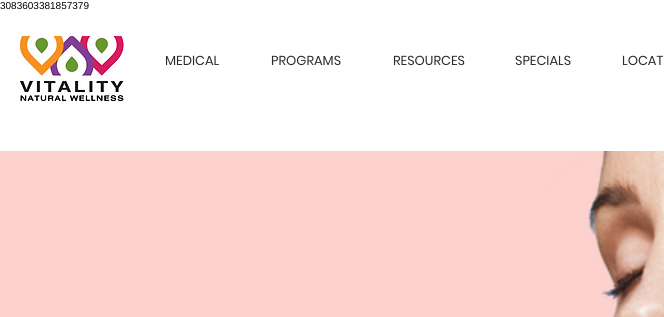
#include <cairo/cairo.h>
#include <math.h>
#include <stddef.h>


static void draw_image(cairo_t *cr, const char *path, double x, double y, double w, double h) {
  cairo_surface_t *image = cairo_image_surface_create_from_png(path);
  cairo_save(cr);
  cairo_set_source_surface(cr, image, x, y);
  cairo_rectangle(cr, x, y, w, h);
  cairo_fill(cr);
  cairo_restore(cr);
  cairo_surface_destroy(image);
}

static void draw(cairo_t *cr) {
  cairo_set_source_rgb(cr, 1, 1, 1);
  cairo_paint(cr);
  draw_image(cr, "images/1.png", 18, 36, 106, 65);
  draw_image(cr, "images/2.png", 0, 151, 664, 166);
  cairo_select_font_face(cr, "Liberation Sans", CAIRO_FONT_SLANT_NORMAL, CAIRO_FONT_WEIGHT_NORMAL);
  cairo_set_font_size(cr, 10);
  cairo_set_source_rgb(cr, 0, 0, 0);
  cairo_move_to(cr, 0, 9);
  cairo_show_text(cr, "3083603381857379");
  cairo_select_font_face(cr, "Poppins", CAIRO_FONT_SLANT_NORMAL, CAIRO_FONT_WEIGHT_NORMAL);
  cairo_set_font_size(cr, 13);
  cairo_set_source_rgb(cr, 43 / 255.0, 43 / 255.0, 43 / 255.0);
  cairo_move_to(cr, 165, 65);
  cairo_show_text(cr, "MEDICAL");
  cairo_move_to(cr, 271, 65);
  cairo_show_text(cr, "PROGRAMS");
  cairo_move_to(cr, 393, 65);
  cairo_show_text(cr, "RESOURCES");
  cairo_move_to(cr, 515, 65);
  cairo_show_text(cr, "SPECIALS");
  cairo_move_to(cr, 622, 65);
  cairo_show_text(cr, "LOCAT");
}

int main(void) {
  cairo_surface_t *surface = cairo_image_surface_create(CAIRO_FORMAT_RGB24, 664, 317);
  cairo_t *cr = cairo_create(surface);
  cairo_font_options_t *options = cairo_font_options_create();
  cairo_font_options_set_hint_metrics(options, CAIRO_HINT_METRICS_OFF);
  cairo_font_options_set_hint_style(options, CAIRO_HINT_STYLE_NONE);
  cairo_set_font_options(cr, options);
  cairo_set_miter_limit(cr, 4);
  draw(cr);
  cairo_surface_write_to_png(surface, "out.png");
  cairo_font_options_destroy(options);
  cairo_destroy(cr);
  cairo_surface_destroy(surface);
  return 0;
}
